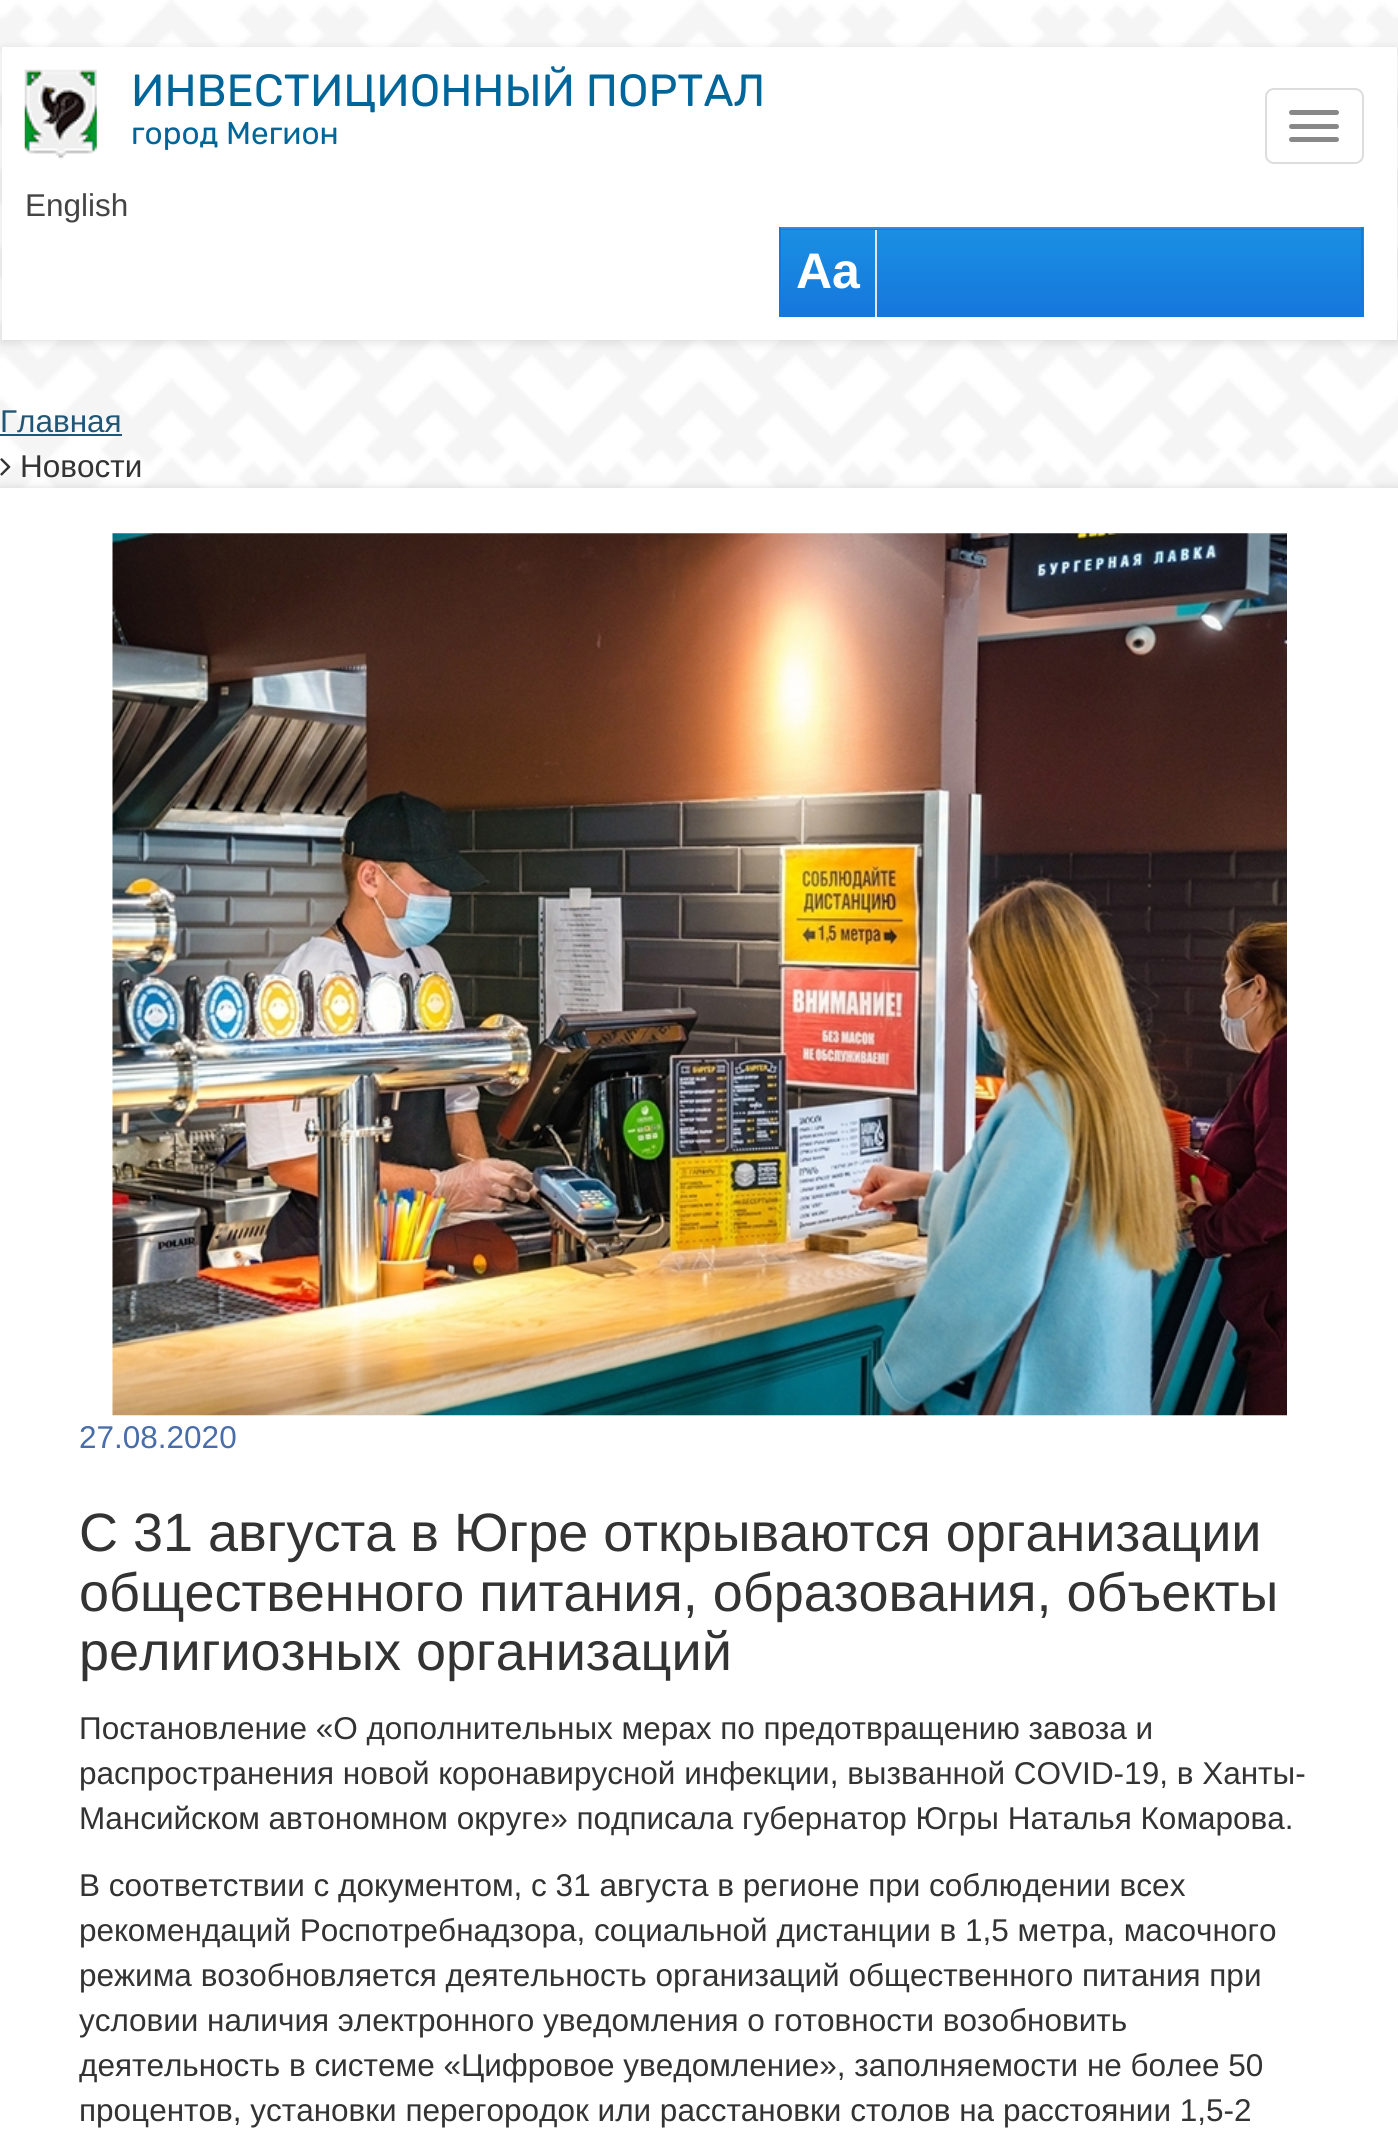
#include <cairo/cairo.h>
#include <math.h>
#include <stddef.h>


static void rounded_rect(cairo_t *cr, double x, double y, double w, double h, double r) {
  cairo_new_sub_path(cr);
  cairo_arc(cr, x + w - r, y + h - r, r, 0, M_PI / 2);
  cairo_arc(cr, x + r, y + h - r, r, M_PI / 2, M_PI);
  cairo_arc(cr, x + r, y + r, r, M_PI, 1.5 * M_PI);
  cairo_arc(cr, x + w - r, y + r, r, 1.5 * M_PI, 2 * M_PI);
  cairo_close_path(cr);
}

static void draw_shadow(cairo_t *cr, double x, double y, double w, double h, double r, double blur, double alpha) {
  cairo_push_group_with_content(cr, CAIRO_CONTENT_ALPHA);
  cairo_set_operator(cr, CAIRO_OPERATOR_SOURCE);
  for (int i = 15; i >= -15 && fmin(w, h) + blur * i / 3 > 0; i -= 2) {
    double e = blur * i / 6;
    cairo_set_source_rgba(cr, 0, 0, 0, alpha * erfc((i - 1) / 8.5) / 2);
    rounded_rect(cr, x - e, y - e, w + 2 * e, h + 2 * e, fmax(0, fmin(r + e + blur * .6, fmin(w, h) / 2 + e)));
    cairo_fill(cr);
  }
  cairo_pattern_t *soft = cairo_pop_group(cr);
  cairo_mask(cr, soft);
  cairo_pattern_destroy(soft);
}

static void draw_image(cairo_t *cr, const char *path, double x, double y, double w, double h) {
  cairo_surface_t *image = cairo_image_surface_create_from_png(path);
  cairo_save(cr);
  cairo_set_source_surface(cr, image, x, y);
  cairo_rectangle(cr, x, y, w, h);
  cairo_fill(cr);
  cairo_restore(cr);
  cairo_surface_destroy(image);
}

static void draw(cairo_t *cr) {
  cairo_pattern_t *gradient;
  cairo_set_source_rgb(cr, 1, 1, 1);
  cairo_paint(cr);
  draw_image(cr, "images/1.png", 0, 0, 1398, 488);
  cairo_set_source_rgb(cr, 0, 0, 0);
  draw_shadow(cr, 2, 50, 1395, 292, 0, 5.5, 0.07);
  draw_shadow(cr, 2, 50, 1395, 292, 0, 5.5, 0.07);
  cairo_set_source_rgb(cr, 1, 1, 1);
  cairo_rectangle(cr, 2, 47, 1395, 293);
  cairo_fill(cr);
  draw_image(cr, "images/2.png", 24, 69, 73, 91);
  rounded_rect(cr, 1266, 89, 97, 74, 8);
  cairo_set_source_rgb(cr, 221 / 255.0, 221 / 255.0, 221 / 255.0);
  cairo_stroke(cr);
  cairo_set_source_rgb(cr, 136 / 255.0, 136 / 255.0, 136 / 255.0);
  rounded_rect(cr, 1289, 110, 50, 5, 2.5);
  cairo_fill(cr);
  rounded_rect(cr, 1289, 124, 50, 5, 2.5);
  cairo_fill(cr);
  rounded_rect(cr, 1289, 137, 50, 5, 2.5);
  cairo_fill(cr);
  gradient = cairo_pattern_create_linear(1071, 144, 1071, 230);
  cairo_pattern_add_color_stop_rgba(gradient, 0, 26 / 255.0, 144 / 255.0, 227 / 255.0, 1);
  cairo_pattern_add_color_stop_rgba(gradient, 1, 22 / 255.0, 119 / 255.0, 220 / 255.0, 1);
  cairo_set_source(cr, gradient);
  cairo_pattern_destroy(gradient);
  cairo_rectangle(cr, 779, 229, 585, 1);
  cairo_fill(cr);
  gradient = cairo_pattern_create_linear(1071, 229, 1071, 315);
  cairo_pattern_add_color_stop_rgba(gradient, 0, 26 / 255.0, 144 / 255.0, 227 / 255.0, 1);
  cairo_pattern_add_color_stop_rgba(gradient, 1, 22 / 255.0, 119 / 255.0, 220 / 255.0, 1);
  cairo_set_source(cr, gradient);
  cairo_pattern_destroy(gradient);
  cairo_rectangle(cr, 781, 230, 583, 85);
  cairo_fill(cr);
  cairo_set_source_rgb(cr, 52 / 255.0, 139 / 255.0, 225 / 255.0);
  cairo_rectangle(cr, 779, 227, 585, 2);
  cairo_fill(cr);
  cairo_set_source_rgb(cr, 22 / 255.0, 119 / 255.0, 220 / 255.0);
  cairo_rectangle(cr, 1361, 227, 2, 90);
  cairo_fill(cr);
  cairo_rectangle(cr, 779, 315, 585, 2);
  cairo_fill(cr);
  cairo_rectangle(cr, 779, 227, 2, 90);
  cairo_fill(cr);
  cairo_set_source_rgb(cr, 228 / 255.0, 228 / 255.0, 228 / 255.0);
  cairo_rectangle(cr, 875, 230, 2, 87);
  cairo_fill(cr);
  cairo_set_source_rgb(cr, 34 / 255.0, 86 / 255.0, 119 / 255.0);
  cairo_rectangle(cr, 0, 434, 122, 2);
  cairo_fill(cr);
  cairo_set_source_rgb(cr, 0, 0, 0);
  draw_shadow(cr, 0, 491, 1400, 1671, 0, 5.5, 0.25);
  draw_image(cr, "images/3.png", 0, 458, 11, 18);
  cairo_set_source_rgb(cr, 1, 1, 1);
  cairo_rectangle(cr, 0, 488, 1398, 1657);
  cairo_fill(cr);
  draw_image(cr, "images/4.png", 112, 533, 1175, 883);
  cairo_select_font_face(cr, "Rubik Light", CAIRO_FONT_SLANT_NORMAL, CAIRO_FONT_WEIGHT_NORMAL);
  cairo_set_font_size(cr, 45);
  cairo_set_source_rgb(cr, 0, 102 / 255.0, 153 / 255.0);
  cairo_move_to(cr, 131, 106);
  cairo_show_text(cr, "ИНВЕСТИЦИОННЫЙ ПОРТАЛ");
  cairo_set_font_size(cr, 31.5);
  cairo_move_to(cr, 131, 144);
  cairo_show_text(cr, "город Мегион");
  cairo_select_font_face(cr, "Liberation Sans", CAIRO_FONT_SLANT_NORMAL, CAIRO_FONT_WEIGHT_NORMAL);
  cairo_set_source_rgb(cr, 68 / 255.0, 68 / 255.0, 68 / 255.0);
  cairo_move_to(cr, 25, 216);
  cairo_show_text(cr, "English");
  cairo_select_font_face(cr, "Liberation Sans", CAIRO_FONT_SLANT_NORMAL, CAIRO_FONT_WEIGHT_BOLD);
  cairo_set_font_size(cr, 50);
  cairo_set_source_rgb(cr, 1, 1, 1);
  cairo_move_to(cr, 796, 288);
  cairo_show_text(cr, "Aa");
  cairo_select_font_face(cr, "Liberation Sans", CAIRO_FONT_SLANT_NORMAL, CAIRO_FONT_WEIGHT_NORMAL);
  cairo_set_font_size(cr, 31.5);
  cairo_set_source_rgb(cr, 34 / 255.0, 86 / 255.0, 119 / 255.0);
  cairo_move_to(cr, 0, 432);
  cairo_show_text(cr, "Главная");
  cairo_set_source_rgb(cr, 51 / 255.0, 51 / 255.0, 51 / 255.0);
  cairo_move_to(cr, 20, 477);
  cairo_show_text(cr, "Новости");
  cairo_set_source_rgb(cr, 72 / 255.0, 109 / 255.0, 170 / 255.0);
  cairo_move_to(cr, 79, 1448);
  cairo_show_text(cr, "27.08.2020");
  cairo_set_font_size(cr, 54);
  cairo_set_source_rgb(cr, 51 / 255.0, 51 / 255.0, 51 / 255.0);
  cairo_move_to(cr, 79, 1551);
  cairo_show_text(cr, "С 31 августа в Югре открываются организации");
  cairo_move_to(cr, 79, 1611);
  cairo_show_text(cr, "общественного питания, образования, объекты");
  cairo_move_to(cr, 79, 1670);
  cairo_show_text(cr, "религиозных организаций");
  cairo_set_font_size(cr, 31.5);
  cairo_move_to(cr, 79, 1739);
  cairo_show_text(cr, "Постановление «О дополнительных мерах по предотвращению завоза и");
  cairo_move_to(cr, 79, 1784);
  cairo_show_text(cr, "распространения новой коронавирусной инфекции, вызванной COVID-19, в Ханты-");
  cairo_move_to(cr, 79, 1829);
  cairo_show_text(cr, "Мансийском автономном округе» подписала губернатор Югры Наталья Комарова.");
  cairo_move_to(cr, 79, 1896);
  cairo_show_text(cr, "В соответствии с документом, с 31 августа в регионе при соблюдении всех");
  cairo_move_to(cr, 79, 1941);
  cairo_show_text(cr, "рекомендаций Роспотребнадзора, социальной дистанции в 1,5 метра, масочного");
  cairo_move_to(cr, 79, 1986);
  cairo_show_text(cr, "режима возобновляется деятельность организаций общественного питания при");
  cairo_move_to(cr, 79, 2031);
  cairo_show_text(cr, "условии наличия электронного уведомления о готовности возобновить");
  cairo_move_to(cr, 79, 2076);
  cairo_show_text(cr, "деятельность в системе «Цифровое уведомление», заполняемости не более 50");
  cairo_move_to(cr, 79, 2121);
  cairo_show_text(cr, "процентов, установки перегородок или расстановки столов на расстоянии 1,5-2");
}

int main(void) {
  cairo_surface_t *surface = cairo_image_surface_create(CAIRO_FORMAT_RGB24, 1398, 2145);
  cairo_t *cr = cairo_create(surface);
  cairo_font_options_t *options = cairo_font_options_create();
  cairo_font_options_set_hint_metrics(options, CAIRO_HINT_METRICS_OFF);
  cairo_font_options_set_hint_style(options, CAIRO_HINT_STYLE_NONE);
  cairo_set_font_options(cr, options);
  cairo_set_miter_limit(cr, 4);
  draw(cr);
  cairo_surface_write_to_png(surface, "out.png");
  cairo_font_options_destroy(options);
  cairo_destroy(cr);
  cairo_surface_destroy(surface);
  return 0;
}
